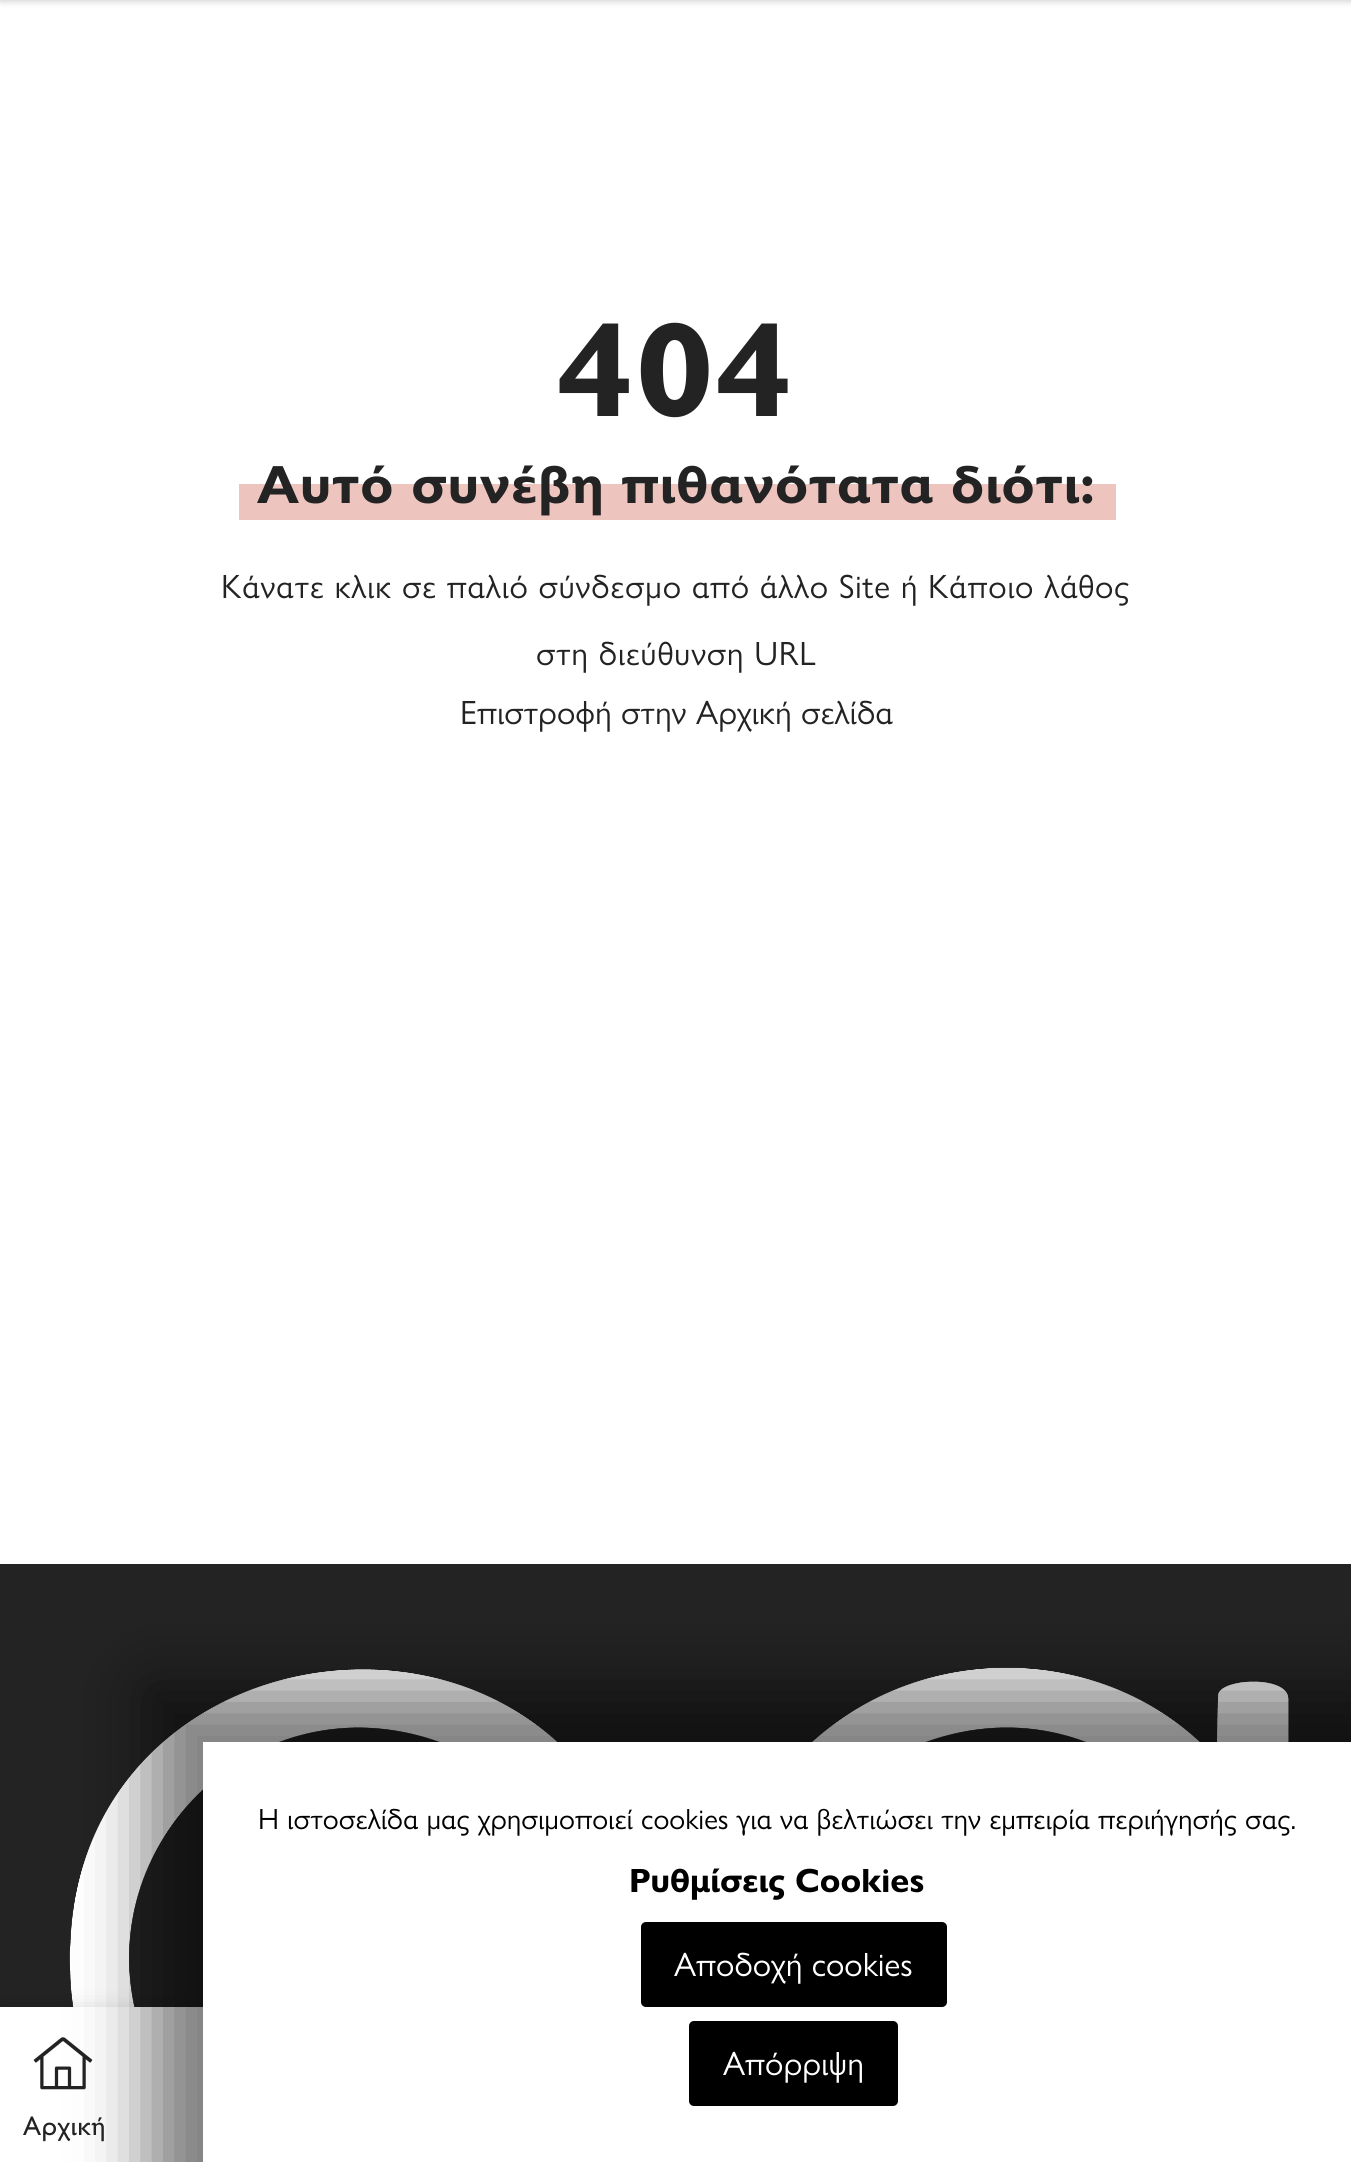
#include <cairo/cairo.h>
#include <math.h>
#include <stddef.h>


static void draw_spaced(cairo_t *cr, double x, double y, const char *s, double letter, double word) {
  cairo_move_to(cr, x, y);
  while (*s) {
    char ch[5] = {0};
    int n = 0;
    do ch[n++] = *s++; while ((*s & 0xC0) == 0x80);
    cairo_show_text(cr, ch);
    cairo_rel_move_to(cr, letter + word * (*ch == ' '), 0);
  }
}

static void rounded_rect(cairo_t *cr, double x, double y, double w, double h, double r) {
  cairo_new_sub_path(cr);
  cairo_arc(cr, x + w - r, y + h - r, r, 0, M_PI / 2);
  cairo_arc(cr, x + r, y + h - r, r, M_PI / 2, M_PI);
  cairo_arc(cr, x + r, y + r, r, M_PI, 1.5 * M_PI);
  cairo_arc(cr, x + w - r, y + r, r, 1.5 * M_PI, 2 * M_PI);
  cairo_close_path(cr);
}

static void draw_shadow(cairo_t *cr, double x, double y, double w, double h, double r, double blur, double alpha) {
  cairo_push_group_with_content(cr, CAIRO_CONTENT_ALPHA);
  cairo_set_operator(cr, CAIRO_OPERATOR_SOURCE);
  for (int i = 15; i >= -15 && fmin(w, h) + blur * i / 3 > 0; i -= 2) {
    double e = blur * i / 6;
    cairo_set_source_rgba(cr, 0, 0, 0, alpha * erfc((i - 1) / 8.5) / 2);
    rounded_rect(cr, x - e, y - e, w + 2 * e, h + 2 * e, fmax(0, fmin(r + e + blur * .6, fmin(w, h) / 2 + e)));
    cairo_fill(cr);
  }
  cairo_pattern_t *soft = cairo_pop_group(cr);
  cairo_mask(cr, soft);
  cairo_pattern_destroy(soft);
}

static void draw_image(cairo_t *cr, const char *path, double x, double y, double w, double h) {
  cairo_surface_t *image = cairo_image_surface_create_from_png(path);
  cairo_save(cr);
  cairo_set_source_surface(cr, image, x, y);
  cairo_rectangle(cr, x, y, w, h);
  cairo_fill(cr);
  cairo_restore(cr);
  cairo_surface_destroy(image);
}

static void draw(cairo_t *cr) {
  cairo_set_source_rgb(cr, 1, 1, 1);
  cairo_paint(cr);
  cairo_set_source_rgb(cr, 0, 0, 0);
  draw_shadow(cr, 0, -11, 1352, 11, 0, 3.5, 0.12);
  draw_shadow(cr, 0, -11, 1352, 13, 0, 3.5, 0.1);
  cairo_set_source_rgb(cr, 238 / 255.0, 196 / 255.0, 191 / 255.0);
  cairo_rectangle(cr, 239, 484, 877, 36);
  cairo_fill(cr);
  cairo_set_source_rgb(cr, 35 / 255.0, 35 / 255.0, 35 / 255.0);
  cairo_rectangle(cr, 0, 1564, 1351, 443);
  cairo_fill(cr);
  draw_image(cr, "images/1.png", 69, 1667, 1220, 340);
  cairo_set_source_rgb(cr, 0, 0, 0);
  draw_shadow(cr, 0, 2007, 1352, 155, 0, 10, 0.12);
  cairo_set_source_rgb(cr, 1, 1, 1);
  cairo_rectangle(cr, 0, 2007, 203, 155);
  cairo_fill(cr);
  draw_image(cr, "images/2.png", 33, 2037, 60, 53);
  cairo_set_source_rgb(cr, 0, 0, 0);
  draw_shadow(cr, 146, 1685, 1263, 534, 0, 34, 0.5);
  cairo_set_source_rgb(cr, 1, 1, 1);
  cairo_rectangle(cr, 203, 1742, 1148, 420);
  cairo_fill(cr);
  cairo_set_source_rgb(cr, 0, 0, 0);
  rounded_rect(cr, 641, 1922, 306, 85, 5);
  cairo_fill(cr);
  rounded_rect(cr, 689, 2021, 209, 85, 5);
  cairo_fill(cr);
  cairo_select_font_face(cr, "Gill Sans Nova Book", CAIRO_FONT_SLANT_NORMAL, CAIRO_FONT_WEIGHT_BOLD);
  cairo_set_font_size(cr, 135);
  cairo_set_source_rgb(cr, 35 / 255.0, 35 / 255.0, 35 / 255.0);
  draw_spaced(cr, 557, 416, "404", 3, 0);
  cairo_set_font_size(cr, 54);
  draw_spaced(cr, 257, 503, "Αυτό συνέβη πιθανότατα διότι:", 1.1, 0);
  cairo_select_font_face(cr, "Gill Sans Nova Book", CAIRO_FONT_SLANT_NORMAL, CAIRO_FONT_WEIGHT_NORMAL);
  cairo_set_font_size(cr, 33.75);
  draw_spaced(cr, 221, 598, "Κάνατε κλικ σε παλιό σύνδεσμο από άλλο Site ή Κάποιο λάθος", 0.67, 0);
  draw_spaced(cr, 536, 665, "στη διεύθυνση URL", 0.67, 0);
  cairo_move_to(cr, 460, 724);
  cairo_show_text(cr, "Επιστροφή στην Αρχική σελίδα");
  cairo_select_font_face(cr, "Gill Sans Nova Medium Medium", CAIRO_FONT_SLANT_NORMAL, CAIRO_FONT_WEIGHT_NORMAL);
  cairo_set_font_size(cr, 27);
  draw_spaced(cr, 23, 2135, "Αρχική", 0.5, 0);
  cairo_select_font_face(cr, "Gill Sans Nova Book", CAIRO_FONT_SLANT_NORMAL, CAIRO_FONT_WEIGHT_NORMAL);
  cairo_set_font_size(cr, 29.25);
  cairo_set_source_rgb(cr, 0, 0, 0);
  cairo_move_to(cr, 258, 1829);
  cairo_show_text(cr, "Η ιστοσελίδα μας χρησιμοποιεί cookies για να βελτιώσει την εμπειρία περιήγησής σας.");
  cairo_select_font_face(cr, "Gill Sans Nova Book", CAIRO_FONT_SLANT_NORMAL, CAIRO_FONT_WEIGHT_BOLD);
  cairo_set_font_size(cr, 33.75);
  cairo_move_to(cr, 629, 1892);
  cairo_show_text(cr, "Ρυθμίσεις Cookies");
  cairo_select_font_face(cr, "Gill Sans Nova Book", CAIRO_FONT_SLANT_NORMAL, CAIRO_FONT_WEIGHT_NORMAL);
  cairo_set_source_rgb(cr, 1, 1, 1);
  cairo_move_to(cr, 674, 1976);
  cairo_show_text(cr, "Αποδοχή cookies");
  cairo_move_to(cr, 723, 2075);
  cairo_show_text(cr, "Απόρριψη");
}

int main(void) {
  cairo_surface_t *surface = cairo_image_surface_create(CAIRO_FORMAT_RGB24, 1351, 2162);
  cairo_t *cr = cairo_create(surface);
  cairo_font_options_t *options = cairo_font_options_create();
  cairo_font_options_set_hint_metrics(options, CAIRO_HINT_METRICS_OFF);
  cairo_font_options_set_hint_style(options, CAIRO_HINT_STYLE_NONE);
  cairo_set_font_options(cr, options);
  cairo_set_miter_limit(cr, 4);
  draw(cr);
  cairo_surface_write_to_png(surface, "out.png");
  cairo_font_options_destroy(options);
  cairo_destroy(cr);
  cairo_surface_destroy(surface);
  return 0;
}
